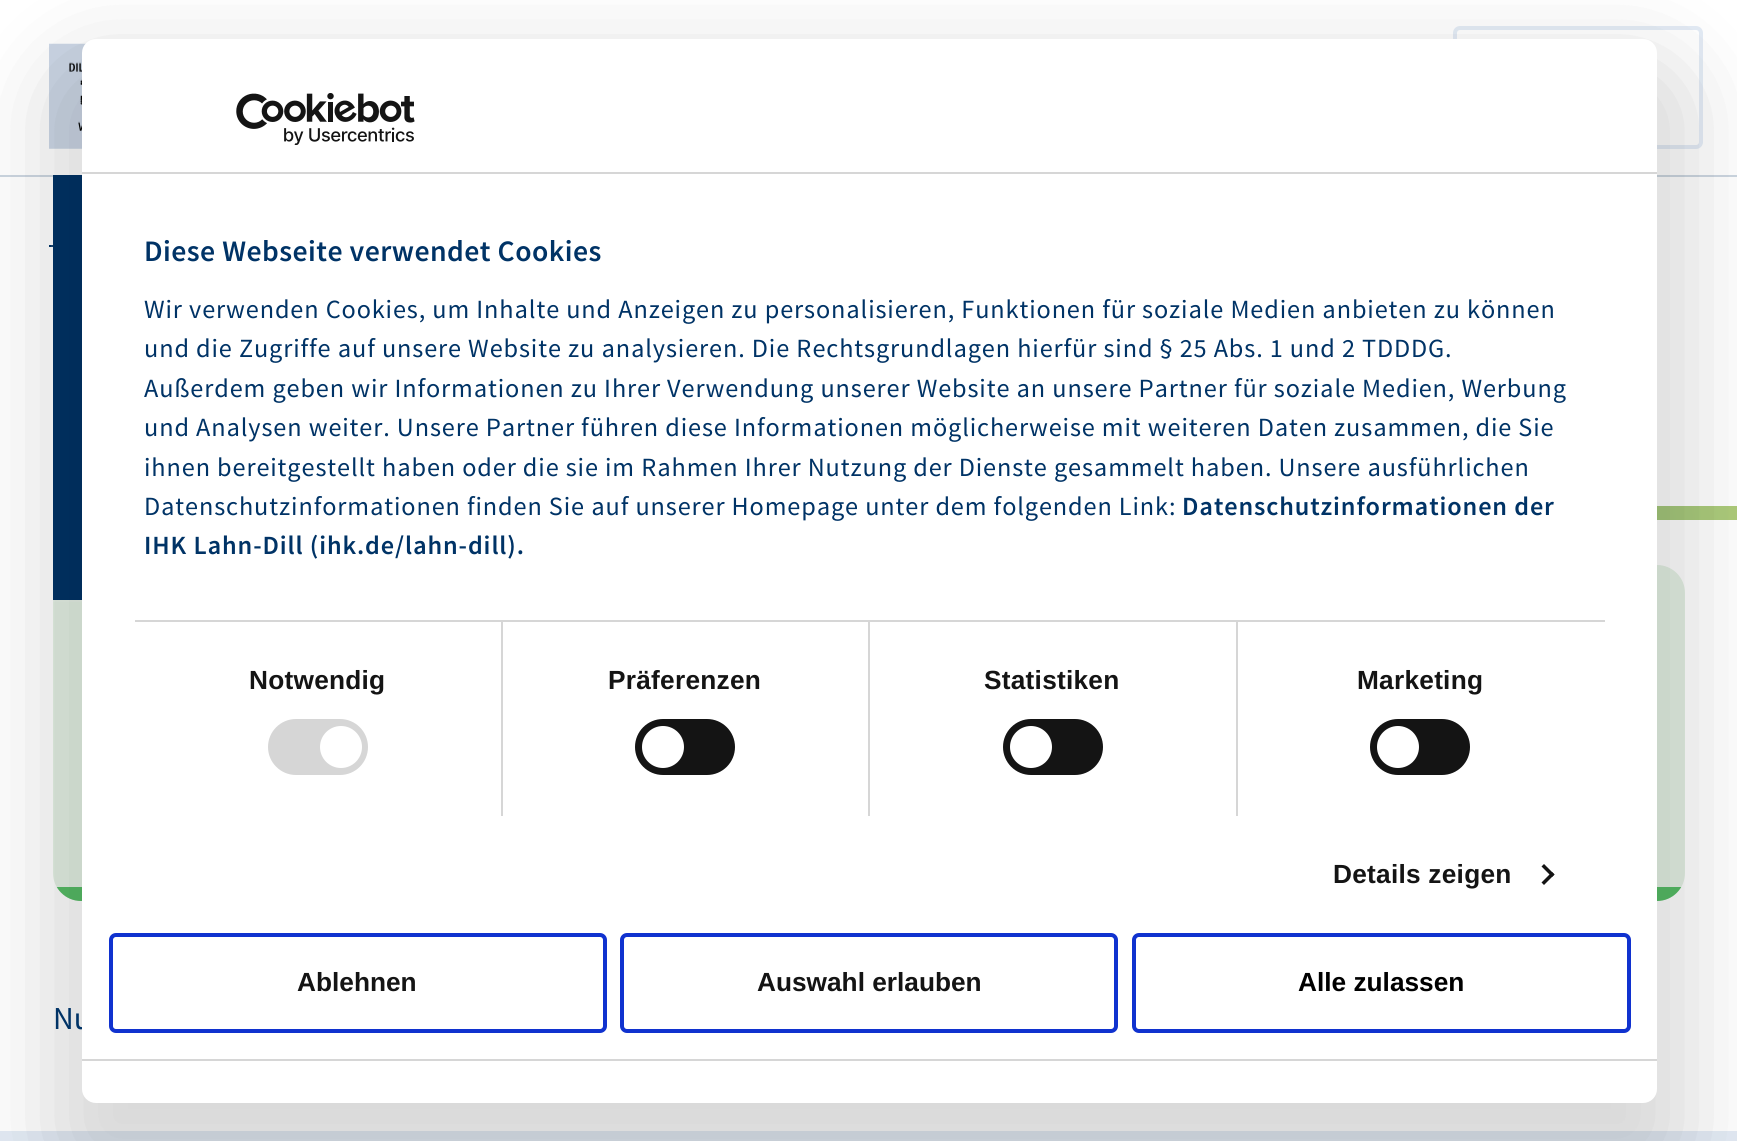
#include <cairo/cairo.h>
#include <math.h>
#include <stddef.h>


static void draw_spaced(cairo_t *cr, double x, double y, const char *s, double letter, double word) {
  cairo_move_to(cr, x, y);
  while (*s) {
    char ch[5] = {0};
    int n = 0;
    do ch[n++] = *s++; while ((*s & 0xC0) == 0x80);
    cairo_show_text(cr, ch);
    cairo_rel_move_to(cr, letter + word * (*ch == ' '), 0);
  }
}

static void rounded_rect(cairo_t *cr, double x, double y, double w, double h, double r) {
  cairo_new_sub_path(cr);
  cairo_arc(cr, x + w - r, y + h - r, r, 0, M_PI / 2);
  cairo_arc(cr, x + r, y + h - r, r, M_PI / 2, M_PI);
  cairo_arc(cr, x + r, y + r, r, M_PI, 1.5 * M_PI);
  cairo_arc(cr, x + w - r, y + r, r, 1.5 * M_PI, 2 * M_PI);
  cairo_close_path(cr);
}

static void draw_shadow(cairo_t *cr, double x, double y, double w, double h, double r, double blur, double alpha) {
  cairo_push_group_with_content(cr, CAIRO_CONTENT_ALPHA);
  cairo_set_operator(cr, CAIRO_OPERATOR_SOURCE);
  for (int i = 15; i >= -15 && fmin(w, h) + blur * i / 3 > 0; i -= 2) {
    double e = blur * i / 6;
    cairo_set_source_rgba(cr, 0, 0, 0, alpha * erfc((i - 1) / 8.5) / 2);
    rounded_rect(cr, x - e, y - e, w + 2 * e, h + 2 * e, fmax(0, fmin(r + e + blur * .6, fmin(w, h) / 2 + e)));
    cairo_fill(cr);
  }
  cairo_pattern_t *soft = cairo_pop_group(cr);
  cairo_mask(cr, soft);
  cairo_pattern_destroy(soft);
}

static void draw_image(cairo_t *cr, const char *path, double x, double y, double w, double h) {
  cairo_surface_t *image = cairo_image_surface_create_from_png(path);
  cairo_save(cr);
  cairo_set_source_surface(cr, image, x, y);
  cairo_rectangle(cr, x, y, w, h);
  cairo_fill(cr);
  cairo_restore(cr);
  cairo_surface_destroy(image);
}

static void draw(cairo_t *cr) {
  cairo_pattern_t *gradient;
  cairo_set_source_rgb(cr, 1, 1, 1);
  cairo_paint(cr);
  draw_image(cr, "images/2.png", 49, 43, 38, 106);
  rounded_rect(cr, 1455, 28, 246, 119, 5);
  cairo_set_source_rgb(cr, 227 / 255.0, 235 / 255.0, 245 / 255.0);
  cairo_set_line_width(cr, 4);
  cairo_stroke(cr);
  cairo_set_source_rgb(cr, 204 / 255.0, 214 / 255.0, 224 / 255.0);
  cairo_new_path(cr);
  cairo_move_to(cr, 0, 175);
  cairo_line_to(cr, 0, 177);
  cairo_line_to(cr, 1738, 177);
  cairo_line_to(cr, 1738, 2);
  cairo_line_to(cr, 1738, 175);
  cairo_close_path(cr);
  cairo_fill(cr);
  cairo_set_source_rgb(cr, 228 / 255.0, 241 / 255.0, 228 / 255.0);
  rounded_rect(cr, 53, 565, 1632, 336, 28);
  cairo_fill(cr);
  cairo_set_source_rgb(cr, 0, 51 / 255.0, 102 / 255.0);
  cairo_rectangle(cr, 53, 175, 29, 425);
  cairo_fill(cr);
  cairo_rectangle(cr, 49, 245, 4, 2);
  cairo_fill(cr);
  cairo_rectangle(cr, 52, 174, 701, 427);
  cairo_set_source_rgba(cr, 1, 1, 1, 0.1);
  cairo_set_line_width(cr, 2);
  cairo_stroke(cr);
  gradient = cairo_pattern_create_linear(58, 586, 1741, 439);
  cairo_pattern_add_color_stop_rgba(gradient, 0, 0, 51 / 255.0, 102 / 255.0, 1);
  cairo_pattern_add_color_stop_rgba(gradient, 0.5, 75 / 255.0, 164 / 255.0, 144 / 255.0, 1);
  cairo_pattern_add_color_stop_rgba(gradient, 1, 175 / 255.0, 204 / 255.0, 122 / 255.0, 1);
  cairo_set_source(cr, gradient);
  cairo_pattern_destroy(gradient);
  cairo_rectangle(cr, 1657, 506, 80, 14);
  cairo_fill(cr);
  cairo_save(cr);
  rounded_rect(cr, 53, 565, 1632, 336, 28);
  cairo_clip(cr);
  cairo_set_source_rgb(cr, 86 / 255.0, 189 / 255.0, 102 / 255.0);
  cairo_rectangle(cr, 56, 887, 1626, 14);
  cairo_fill(cr);
  cairo_restore(cr);
  cairo_set_source_rgb(cr, 227 / 255.0, 235 / 255.0, 245 / 255.0);
  cairo_rectangle(cr, 0, 1131, 1737, 10);
  cairo_fill(cr);
  cairo_set_source_rgb(cr, 0, 0, 0);
  draw_shadow(cr, 47, 56, 1645, 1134, 49, 44, 0.15);
  cairo_select_font_face(cr, "Source Sans Pro", CAIRO_FONT_SLANT_NORMAL, CAIRO_FONT_WEIGHT_NORMAL);
  cairo_set_font_size(cr, 32);
  cairo_set_source_rgb(cr, 0, 51 / 255.0, 102 / 255.0);
  cairo_move_to(cr, 53, 1029);
  cairo_show_text(cr, "Nu");
  cairo_set_source_rgb(cr, 1, 1, 1);
  rounded_rect(cr, 82, 39, 1575, 1064, 14);
  cairo_fill(cr);
  rounded_rect(cr, 1134, 935, 495, 96, 5);
  cairo_set_source_rgb(cr, 16 / 255.0, 50 / 255.0, 207 / 255.0);
  cairo_set_line_width(cr, 4);
  cairo_stroke(cr);
  cairo_select_font_face(cr, "Liberation Sans", CAIRO_FONT_SLANT_NORMAL, CAIRO_FONT_WEIGHT_BOLD);
  cairo_set_font_size(cr, 26.25);
  cairo_set_source_rgb(cr, 0, 0, 0);
  cairo_move_to(cr, 1298, 991);
  cairo_show_text(cr, "Alle zulassen");
  rounded_rect(cr, 622, 935, 494, 96, 5);
  cairo_set_source_rgb(cr, 16 / 255.0, 50 / 255.0, 207 / 255.0);
  cairo_stroke(cr);
  cairo_set_source_rgb(cr, 20 / 255.0, 20 / 255.0, 20 / 255.0);
  cairo_move_to(cr, 757, 991);
  cairo_show_text(cr, "Auswahl erlauben");
  rounded_rect(cr, 111, 935, 494, 96, 5);
  cairo_set_source_rgb(cr, 16 / 255.0, 50 / 255.0, 207 / 255.0);
  cairo_stroke(cr);
  cairo_set_source_rgb(cr, 20 / 255.0, 20 / 255.0, 20 / 255.0);
  cairo_move_to(cr, 297, 991);
  cairo_show_text(cr, "Ablehnen");
  cairo_set_source_rgb(cr, 214 / 255.0, 214 / 255.0, 214 / 255.0);
  cairo_rectangle(cr, 82, 1059, 1575, 2);
  cairo_fill(cr);
  cairo_set_source_rgb(cr, 20 / 255.0, 20 / 255.0, 20 / 255.0);
  cairo_new_path(cr);
  cairo_move_to(cr, 1544, 864);
  cairo_line_to(cr, 1554.5, 874.5);
  cairo_line_to(cr, 1552, 877);
  cairo_line_to(cr, 1541.5, 866.5);
  cairo_close_path(cr);
  cairo_fill(cr);
  cairo_new_path(cr);
  cairo_move_to(cr, 1552, 872);
  cairo_line_to(cr, 1554.5, 874.5);
  cairo_line_to(cr, 1544, 885);
  cairo_line_to(cr, 1541.5, 882.5);
  cairo_close_path(cr);
  cairo_fill(cr);
  rounded_rect(cr, 1370, 719, 100, 56, 28);
  cairo_fill(cr);
  cairo_set_source_rgb(cr, 1, 1, 1);
  cairo_arc(cr, 1398, 747, 21, 0, 2 * M_PI);
  cairo_fill(cr);
  cairo_set_source_rgb(cr, 20 / 255.0, 20 / 255.0, 20 / 255.0);
  rounded_rect(cr, 1003, 719, 100, 56, 28);
  cairo_fill(cr);
  cairo_set_source_rgb(cr, 1, 1, 1);
  cairo_arc(cr, 1031, 747, 21, 0, 2 * M_PI);
  cairo_fill(cr);
  cairo_set_source_rgb(cr, 20 / 255.0, 20 / 255.0, 20 / 255.0);
  rounded_rect(cr, 635, 719, 100, 56, 28);
  cairo_fill(cr);
  cairo_set_source_rgb(cr, 1, 1, 1);
  cairo_arc(cr, 663, 747, 21, 0, 2 * M_PI);
  cairo_fill(cr);
  cairo_set_source_rgb(cr, 214 / 255.0, 214 / 255.0, 214 / 255.0);
  rounded_rect(cr, 268, 719, 100, 56, 28);
  cairo_fill(cr);
  cairo_set_source_rgb(cr, 1, 1, 1);
  cairo_arc(cr, 341, 747, 21, 0, 2 * M_PI);
  cairo_fill(cr);
  cairo_select_font_face(cr, "Source Sans Pro SemiBold", CAIRO_FONT_SLANT_NORMAL, CAIRO_FONT_WEIGHT_NORMAL);
  cairo_set_source_rgb(cr, 0, 51 / 255.0, 102 / 255.0);
  draw_spaced(cr, 144, 554, "IHK Lahn-Dill (ihk.de/lahn-dill).", 0.88, 0);
  draw_spaced(cr, 1182, 515, "Datenschutzinformationen der", 0.88, 0);
  cairo_select_font_face(cr, "Source Sans Pro", CAIRO_FONT_SLANT_NORMAL, CAIRO_FONT_WEIGHT_NORMAL);
  draw_spaced(cr, 144, 515, "Datenschutzinformationen finden Sie auf unserer Homepage unter dem folgenden Link:", 0.88, 0);
  draw_spaced(cr, 144, 476, "ihnen bereitgestellt haben oder die sie im Rahmen Ihrer Nutzung der Dienste gesammelt haben. Unsere ausführlichen", 0.88, 0);
  draw_spaced(cr, 144, 436, "und Analysen weiter. Unsere Partner führen diese Informationen möglicherweise mit weiteren Daten zusammen, die Sie", 0.88, 0);
  draw_spaced(cr, 144, 397, "Außerdem geben wir Informationen zu Ihrer Verwendung unserer Website an unsere Partner für soziale Medien, Werbung", 0.88, 0);
  draw_spaced(cr, 144, 357, "und die Zugriffe auf unsere Website zu analysieren. Die Rechtsgrundlagen hierfür sind § 25 Abs. 1 und 2 TDDDG.", 0.88, 0);
  draw_spaced(cr, 144, 318, "Wir verwenden Cookies, um Inhalte und Anzeigen zu personalisieren, Funktionen für soziale Medien anbieten zu können", 0.88, 0);
  cairo_select_font_face(cr, "Source Sans Pro SemiBold", CAIRO_FONT_SLANT_NORMAL, CAIRO_FONT_WEIGHT_NORMAL);
  cairo_set_font_size(cr, 29.75);
  draw_spaced(cr, 144, 261, "Diese Webseite verwendet Cookies", 0.45, 0);
  cairo_set_source_rgb(cr, 214 / 255.0, 214 / 255.0, 214 / 255.0);
  cairo_rectangle(cr, 1236, 621, 2, 195);
  cairo_fill(cr);
  cairo_rectangle(cr, 868, 621, 2, 195);
  cairo_fill(cr);
  cairo_rectangle(cr, 501, 621, 2, 195);
  cairo_fill(cr);
  cairo_rectangle(cr, 135, 620, 1470, 2);
  cairo_fill(cr);
  cairo_select_font_face(cr, "Liberation Sans", CAIRO_FONT_SLANT_NORMAL, CAIRO_FONT_WEIGHT_BOLD);
  cairo_set_font_size(cr, 26.25);
  cairo_set_source_rgb(cr, 20 / 255.0, 20 / 255.0, 20 / 255.0);
  draw_spaced(cr, 1333, 883, "Details zeigen", 0.25, 0);
  draw_spaced(cr, 1357, 689, "Marketing", 0.25, 0);
  draw_spaced(cr, 984, 689, "Statistiken", 0.25, 0);
  draw_spaced(cr, 608, 689, "Präferenzen", 0.25, 0);
  draw_spaced(cr, 249, 689, "Notwendig", 0.25, 0);
  draw_image(cr, "images/1.png", 236, 93, 179, 52);
  cairo_set_source_rgb(cr, 214 / 255.0, 214 / 255.0, 214 / 255.0);
  cairo_rectangle(cr, 82, 172, 1575, 2);
  cairo_fill(cr);
}

int main(void) {
  cairo_surface_t *surface = cairo_image_surface_create(CAIRO_FORMAT_RGB24, 1737, 1141);
  cairo_t *cr = cairo_create(surface);
  cairo_font_options_t *options = cairo_font_options_create();
  cairo_font_options_set_hint_metrics(options, CAIRO_HINT_METRICS_OFF);
  cairo_font_options_set_hint_style(options, CAIRO_HINT_STYLE_NONE);
  cairo_set_font_options(cr, options);
  cairo_set_miter_limit(cr, 4);
  draw(cr);
  cairo_surface_write_to_png(surface, "out.png");
  cairo_font_options_destroy(options);
  cairo_destroy(cr);
  cairo_surface_destroy(surface);
  return 0;
}
